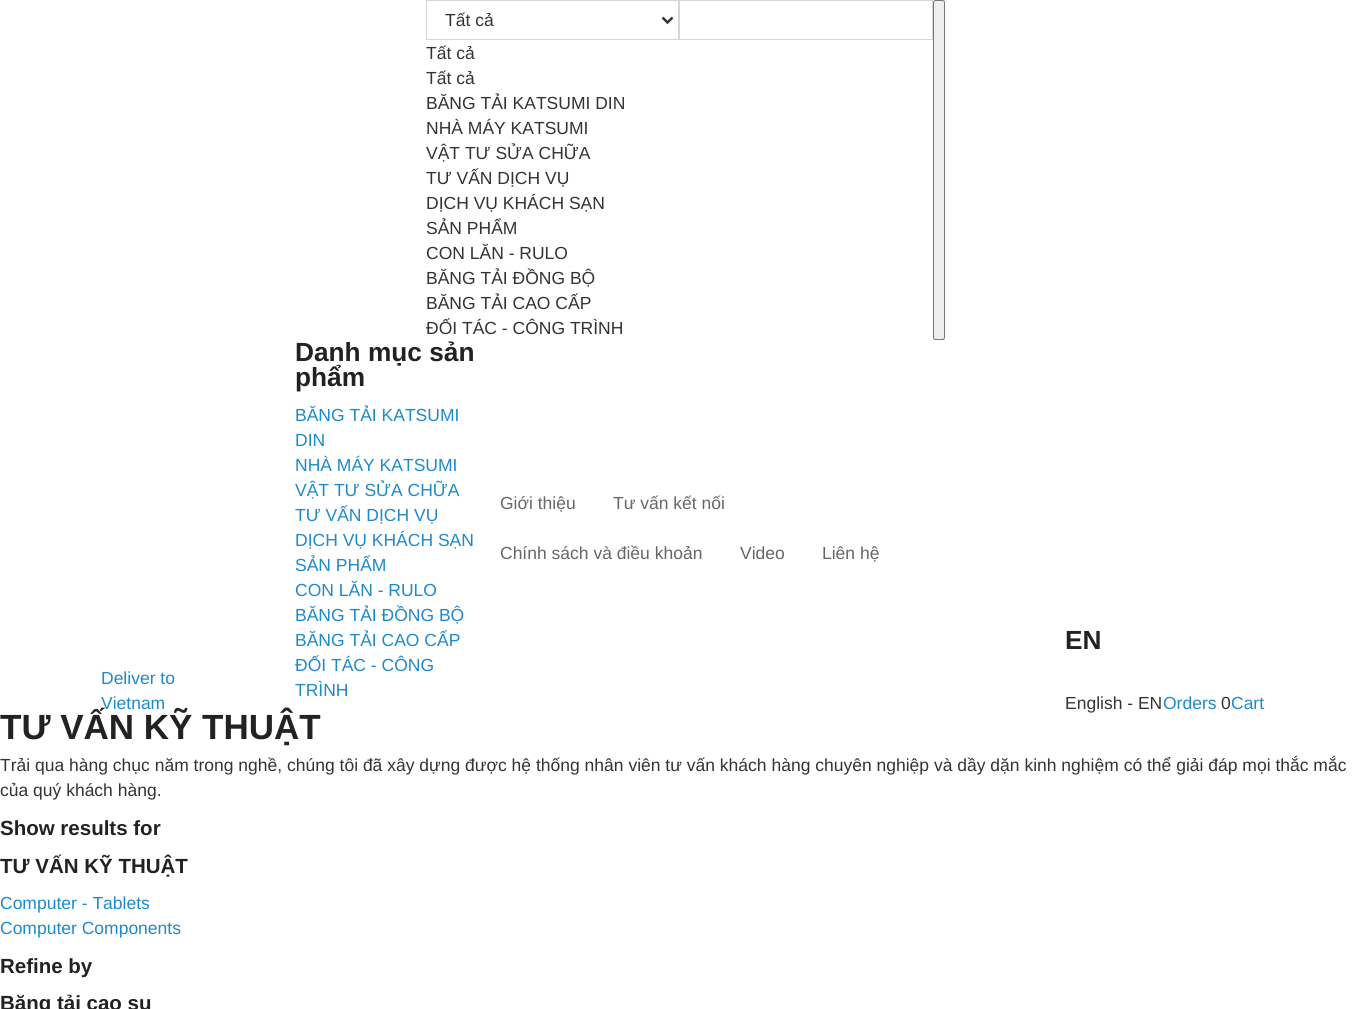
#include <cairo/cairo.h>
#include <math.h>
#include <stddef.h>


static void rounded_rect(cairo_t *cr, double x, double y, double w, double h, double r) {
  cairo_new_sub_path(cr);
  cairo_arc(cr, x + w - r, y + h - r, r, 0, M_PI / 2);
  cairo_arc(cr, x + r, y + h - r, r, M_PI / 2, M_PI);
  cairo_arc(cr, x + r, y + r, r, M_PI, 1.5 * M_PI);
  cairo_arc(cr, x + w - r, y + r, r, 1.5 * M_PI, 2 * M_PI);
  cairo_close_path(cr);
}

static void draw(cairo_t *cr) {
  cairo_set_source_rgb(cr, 1, 1, 1);
  cairo_paint(cr);
  cairo_rectangle(cr, 426.5, 0.5, 252, 39);
  cairo_set_source_rgb(cr, 213 / 255.0, 213 / 255.0, 213 / 255.0);
  cairo_set_line_width(cr, 1);
  cairo_stroke(cr);
  cairo_new_path(cr);
  cairo_move_to(cr, 662.5, 17.5);
  cairo_line_to(cr, 667.5, 22.5);
  cairo_line_to(cr, 672.5, 17.5);
  cairo_set_source_rgb(cr, 51 / 255.0, 51 / 255.0, 51 / 255.0);
  cairo_set_line_width(cr, 2.5);
  cairo_stroke(cr);
  cairo_rectangle(cr, 679.5, 0.5, 253, 39);
  cairo_set_source_rgb(cr, 213 / 255.0, 213 / 255.0, 213 / 255.0);
  cairo_set_line_width(cr, 1);
  cairo_stroke(cr);
  cairo_set_source_rgb(cr, 239 / 255.0, 239 / 255.0, 239 / 255.0);
  rounded_rect(cr, 933.5, 0.5, 11, 339, 2);
  cairo_fill_preserve(cr);
  cairo_set_source_rgb(cr, 118 / 255.0, 118 / 255.0, 118 / 255.0);
  cairo_stroke(cr);
  cairo_select_font_face(cr, "Liberation Sans", CAIRO_FONT_SLANT_NORMAL, CAIRO_FONT_WEIGHT_NORMAL);
  cairo_set_font_size(cr, 17.5);
  cairo_set_source_rgb(cr, 51 / 255.0, 51 / 255.0, 51 / 255.0);
  cairo_move_to(cr, 445, 26);
  cairo_show_text(cr, "Tất cả");
  cairo_move_to(cr, 426, 59);
  cairo_show_text(cr, "Tất cả");
  cairo_move_to(cr, 426, 84);
  cairo_show_text(cr, "Tất cả");
  cairo_move_to(cr, 426, 109);
  cairo_show_text(cr, "BĂNG TẢI KATSUMI DIN");
  cairo_move_to(cr, 426, 134);
  cairo_show_text(cr, "NHÀ MÁY KATSUMI");
  cairo_move_to(cr, 426, 159);
  cairo_show_text(cr, "VẬT TƯ SỬA CHỮA");
  cairo_move_to(cr, 426, 184);
  cairo_show_text(cr, "TƯ VẤN DỊCH VỤ");
  cairo_move_to(cr, 426, 209);
  cairo_show_text(cr, "DỊCH VỤ KHÁCH SẠN");
  cairo_move_to(cr, 426, 234);
  cairo_show_text(cr, "SẢN PHẨM");
  cairo_move_to(cr, 426, 259);
  cairo_show_text(cr, "CON LĂN - RULO");
  cairo_move_to(cr, 426, 284);
  cairo_show_text(cr, "BĂNG TẢI ĐỒNG BỘ");
  cairo_move_to(cr, 426, 309);
  cairo_show_text(cr, "BĂNG TẢI CAO CẤP");
  cairo_move_to(cr, 426, 334);
  cairo_show_text(cr, "ĐỐI TÁC - CÔNG TRÌNH");
  cairo_set_source_rgb(cr, 29 / 255.0, 138 / 255.0, 203 / 255.0);
  cairo_move_to(cr, 101, 684);
  cairo_show_text(cr, "Deliver to");
  cairo_move_to(cr, 101, 709);
  cairo_show_text(cr, "Vietnam");
  cairo_select_font_face(cr, "Liberation Sans", CAIRO_FONT_SLANT_NORMAL, CAIRO_FONT_WEIGHT_BOLD);
  cairo_set_font_size(cr, 26.25);
  cairo_set_source_rgb(cr, 34 / 255.0, 34 / 255.0, 34 / 255.0);
  cairo_move_to(cr, 295, 361);
  cairo_show_text(cr, "Danh mục sản");
  cairo_move_to(cr, 295, 386);
  cairo_show_text(cr, "phẩm");
  cairo_select_font_face(cr, "Liberation Sans", CAIRO_FONT_SLANT_NORMAL, CAIRO_FONT_WEIGHT_NORMAL);
  cairo_set_font_size(cr, 17.5);
  cairo_set_source_rgb(cr, 29 / 255.0, 138 / 255.0, 203 / 255.0);
  cairo_move_to(cr, 295, 421);
  cairo_show_text(cr, "BĂNG TẢI KATSUMI");
  cairo_move_to(cr, 295, 446);
  cairo_show_text(cr, "DIN");
  cairo_move_to(cr, 295, 471);
  cairo_show_text(cr, "NHÀ MÁY KATSUMI");
  cairo_move_to(cr, 295, 496);
  cairo_show_text(cr, "VẬT TƯ SỬA CHỮA");
  cairo_move_to(cr, 295, 521);
  cairo_show_text(cr, "TƯ VẤN DỊCH VỤ");
  cairo_move_to(cr, 295, 546);
  cairo_show_text(cr, "DỊCH VỤ KHÁCH SẠN");
  cairo_move_to(cr, 295, 571);
  cairo_show_text(cr, "SẢN PHẨM");
  cairo_move_to(cr, 295, 596);
  cairo_show_text(cr, "CON LĂN - RULO");
  cairo_move_to(cr, 295, 621);
  cairo_show_text(cr, "BĂNG TẢI ĐỒNG BỘ");
  cairo_move_to(cr, 295, 646);
  cairo_show_text(cr, "BĂNG TẢI CAO CẤP");
  cairo_move_to(cr, 295, 671);
  cairo_show_text(cr, "ĐỐI TÁC - CÔNG");
  cairo_move_to(cr, 295, 696);
  cairo_show_text(cr, "TRÌNH");
  cairo_set_source_rgb(cr, 102 / 255.0, 102 / 255.0, 102 / 255.0);
  cairo_move_to(cr, 500, 509);
  cairo_show_text(cr, "Giới thiệu");
  cairo_move_to(cr, 613, 509);
  cairo_show_text(cr, "Tư vấn kết nối");
  cairo_move_to(cr, 500, 559);
  cairo_show_text(cr, "Chính sách và điều khoản");
  cairo_move_to(cr, 740, 559);
  cairo_show_text(cr, "Video");
  cairo_move_to(cr, 822, 559);
  cairo_show_text(cr, "Liên hệ");
  cairo_select_font_face(cr, "Liberation Sans", CAIRO_FONT_SLANT_NORMAL, CAIRO_FONT_WEIGHT_BOLD);
  cairo_set_font_size(cr, 26.25);
  cairo_set_source_rgb(cr, 34 / 255.0, 34 / 255.0, 34 / 255.0);
  cairo_move_to(cr, 1065, 649);
  cairo_show_text(cr, "EN");
  cairo_select_font_face(cr, "Liberation Sans", CAIRO_FONT_SLANT_NORMAL, CAIRO_FONT_WEIGHT_NORMAL);
  cairo_set_font_size(cr, 17.5);
  cairo_set_source_rgb(cr, 51 / 255.0, 51 / 255.0, 51 / 255.0);
  cairo_move_to(cr, 1065, 709);
  cairo_show_text(cr, "English - EN");
  cairo_set_source_rgb(cr, 29 / 255.0, 138 / 255.0, 203 / 255.0);
  cairo_move_to(cr, 1163, 709);
  cairo_show_text(cr, "Orders");
  cairo_set_source_rgb(cr, 51 / 255.0, 51 / 255.0, 51 / 255.0);
  cairo_move_to(cr, 1221, 709);
  cairo_show_text(cr, "0");
  cairo_set_source_rgb(cr, 29 / 255.0, 138 / 255.0, 203 / 255.0);
  cairo_move_to(cr, 1231, 709);
  cairo_show_text(cr, "Cart");
  cairo_select_font_face(cr, "Liberation Sans", CAIRO_FONT_SLANT_NORMAL, CAIRO_FONT_WEIGHT_BOLD);
  cairo_set_font_size(cr, 35);
  cairo_set_source_rgb(cr, 34 / 255.0, 34 / 255.0, 34 / 255.0);
  cairo_move_to(cr, 0, 739);
  cairo_show_text(cr, "TƯ VẤN KỸ THUẬT");
  cairo_select_font_face(cr, "Liberation Sans", CAIRO_FONT_SLANT_NORMAL, CAIRO_FONT_WEIGHT_NORMAL);
  cairo_set_font_size(cr, 17.5);
  cairo_set_source_rgb(cr, 51 / 255.0, 51 / 255.0, 51 / 255.0);
  cairo_move_to(cr, 0, 771);
  cairo_show_text(cr, "Trải qua hàng chục năm trong nghề, chúng tôi đã xây dựng được hệ thống nhân viên tư vấn khách hàng chuyên nghiệp và dầy dặn kinh nghiệm có thể giải đáp mọi thắc mắc");
  cairo_move_to(cr, 0, 796);
  cairo_show_text(cr, "của quý khách hàng.");
  cairo_select_font_face(cr, "Liberation Sans", CAIRO_FONT_SLANT_NORMAL, CAIRO_FONT_WEIGHT_BOLD);
  cairo_set_font_size(cr, 20.5);
  cairo_set_source_rgb(cr, 34 / 255.0, 34 / 255.0, 34 / 255.0);
  cairo_move_to(cr, 0, 835);
  cairo_show_text(cr, "Show results for");
  cairo_move_to(cr, 0, 873);
  cairo_show_text(cr, "TƯ VẤN KỸ THUẬT");
  cairo_select_font_face(cr, "Liberation Sans", CAIRO_FONT_SLANT_NORMAL, CAIRO_FONT_WEIGHT_NORMAL);
  cairo_set_font_size(cr, 17.5);
  cairo_set_source_rgb(cr, 29 / 255.0, 138 / 255.0, 203 / 255.0);
  cairo_move_to(cr, 0, 909);
  cairo_show_text(cr, "Computer - Tablets");
  cairo_move_to(cr, 0, 934);
  cairo_show_text(cr, "Computer Components");
  cairo_select_font_face(cr, "Liberation Sans", CAIRO_FONT_SLANT_NORMAL, CAIRO_FONT_WEIGHT_BOLD);
  cairo_set_font_size(cr, 20.5);
  cairo_set_source_rgb(cr, 34 / 255.0, 34 / 255.0, 34 / 255.0);
  cairo_move_to(cr, 0, 973);
  cairo_show_text(cr, "Refine by");
  cairo_move_to(cr, 0, 1010);
  cairo_show_text(cr, "Băng tải cao su");
}

int main(void) {
  cairo_surface_t *surface = cairo_image_surface_create(CAIRO_FORMAT_RGB24, 1364, 1009);
  cairo_t *cr = cairo_create(surface);
  cairo_font_options_t *options = cairo_font_options_create();
  cairo_font_options_set_hint_metrics(options, CAIRO_HINT_METRICS_OFF);
  cairo_font_options_set_hint_style(options, CAIRO_HINT_STYLE_NONE);
  cairo_set_font_options(cr, options);
  cairo_set_miter_limit(cr, 4);
  draw(cr);
  cairo_surface_write_to_png(surface, "out.png");
  cairo_font_options_destroy(options);
  cairo_destroy(cr);
  cairo_surface_destroy(surface);
  return 0;
}
